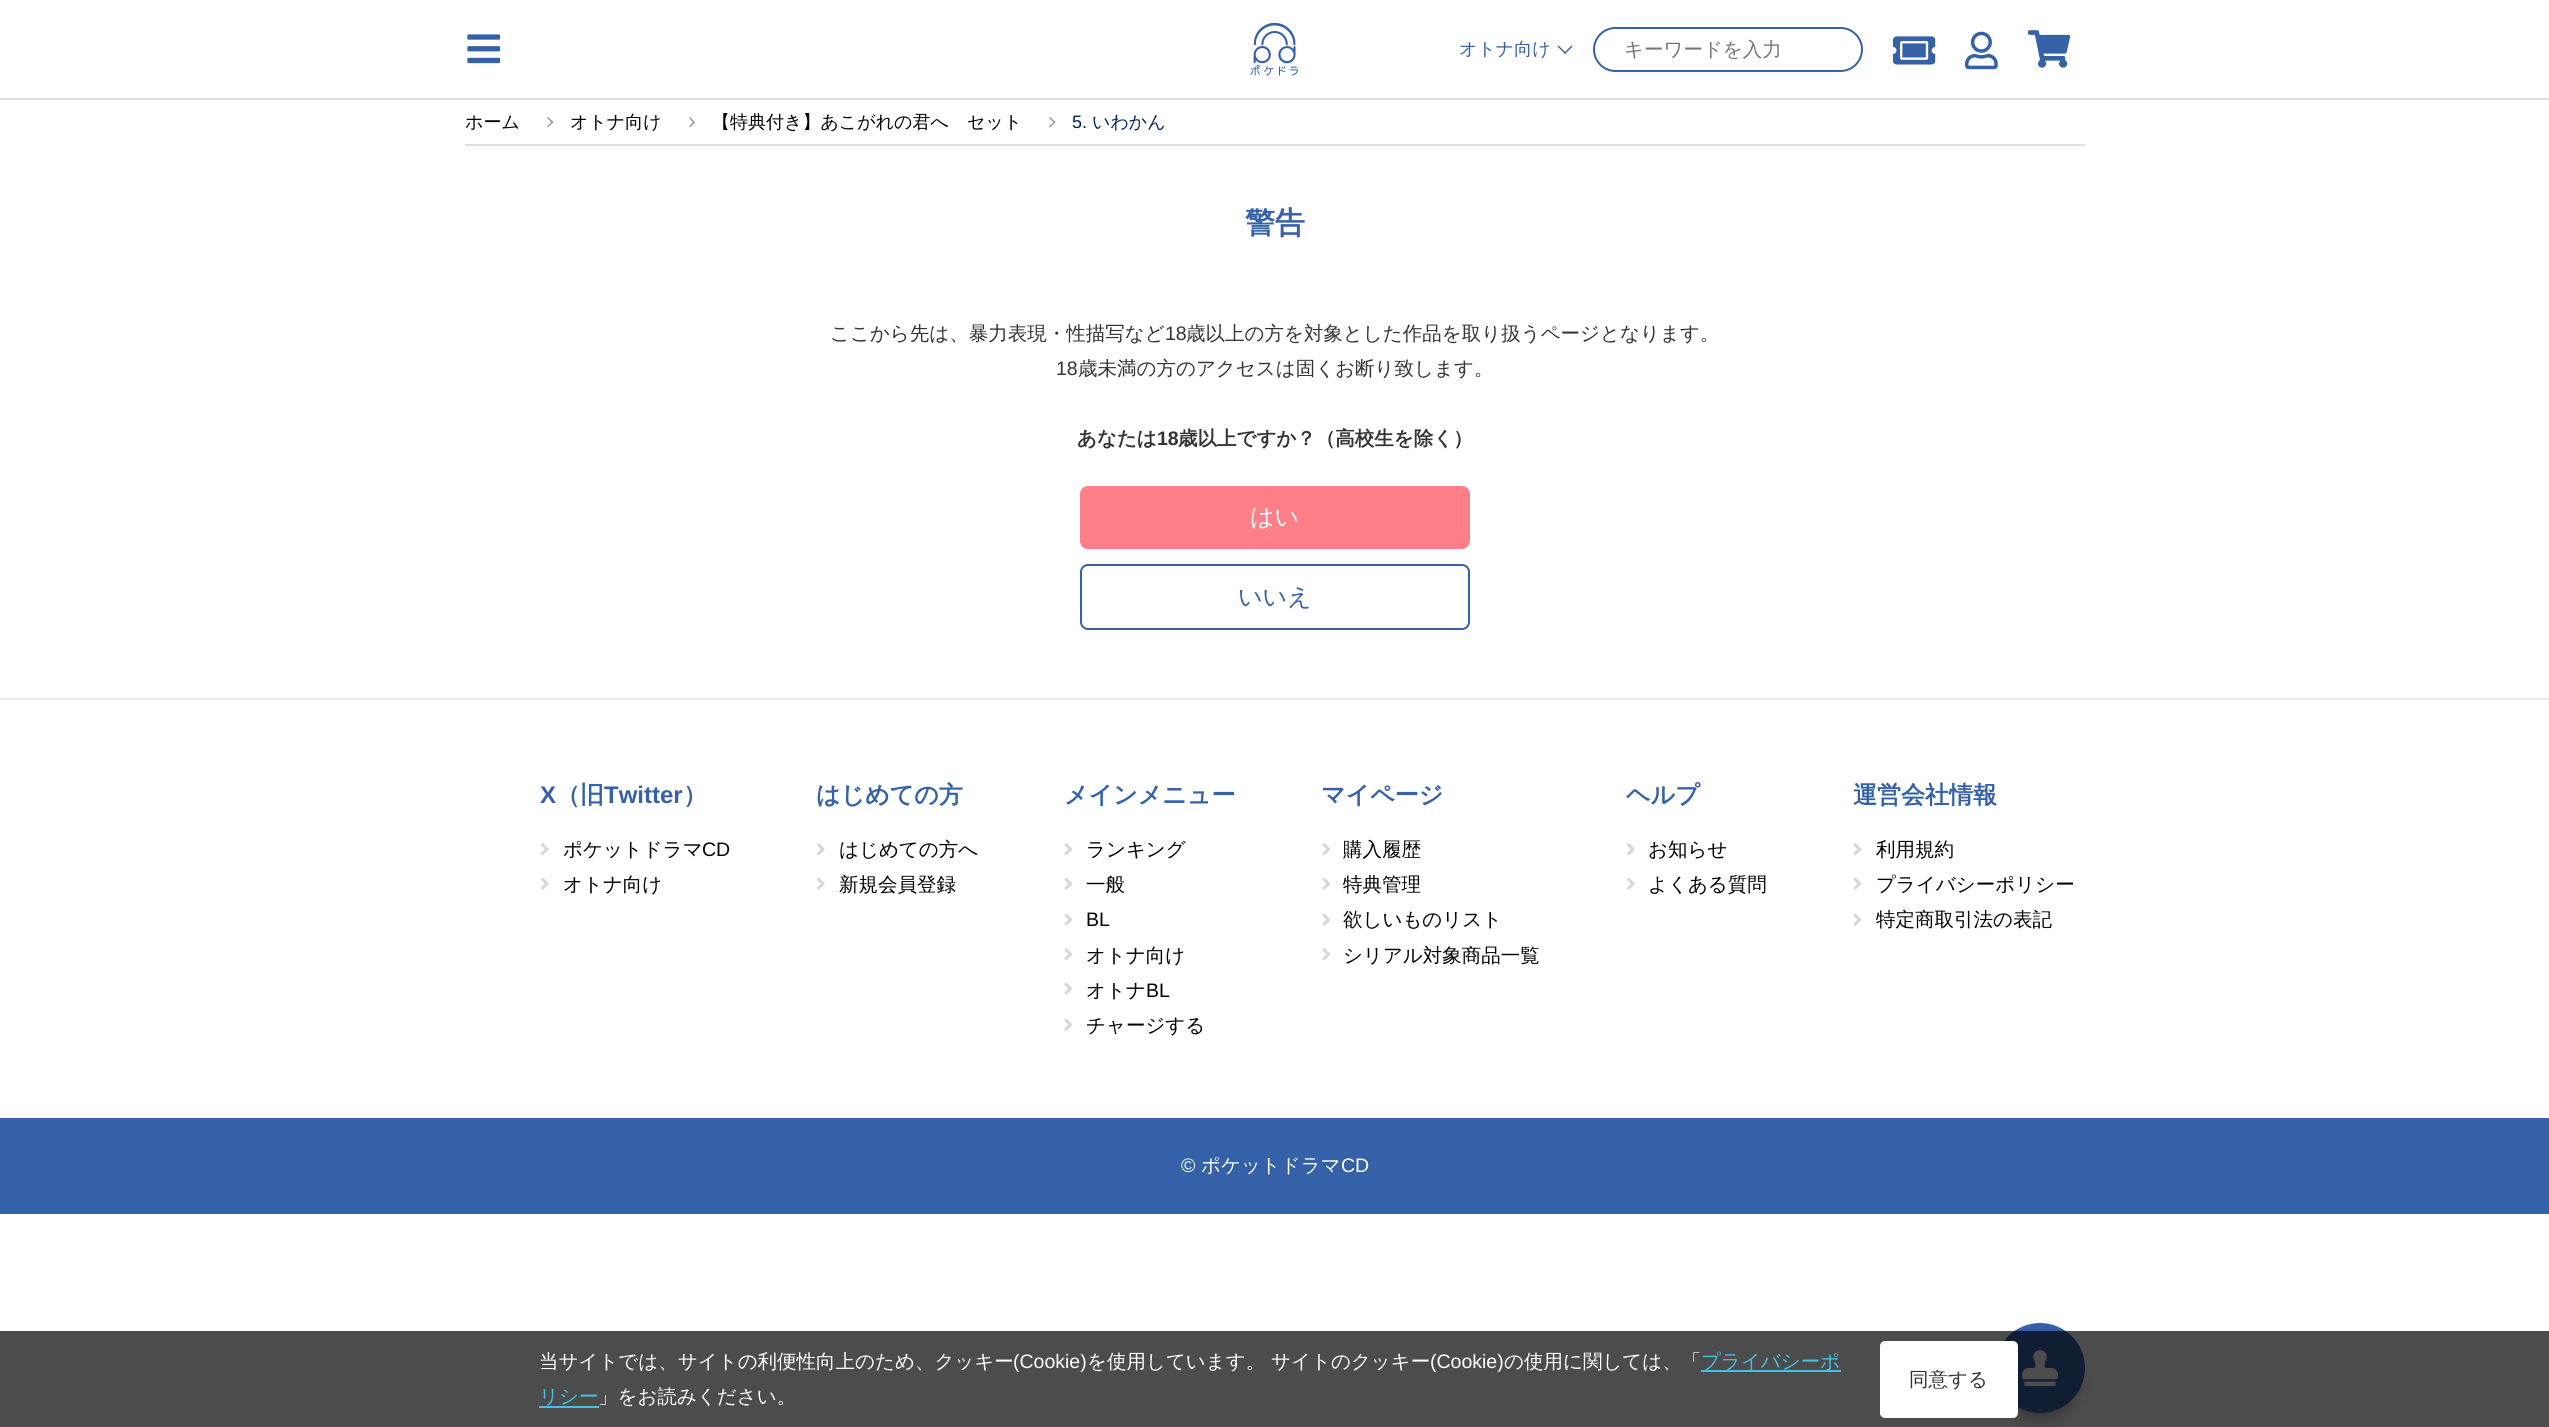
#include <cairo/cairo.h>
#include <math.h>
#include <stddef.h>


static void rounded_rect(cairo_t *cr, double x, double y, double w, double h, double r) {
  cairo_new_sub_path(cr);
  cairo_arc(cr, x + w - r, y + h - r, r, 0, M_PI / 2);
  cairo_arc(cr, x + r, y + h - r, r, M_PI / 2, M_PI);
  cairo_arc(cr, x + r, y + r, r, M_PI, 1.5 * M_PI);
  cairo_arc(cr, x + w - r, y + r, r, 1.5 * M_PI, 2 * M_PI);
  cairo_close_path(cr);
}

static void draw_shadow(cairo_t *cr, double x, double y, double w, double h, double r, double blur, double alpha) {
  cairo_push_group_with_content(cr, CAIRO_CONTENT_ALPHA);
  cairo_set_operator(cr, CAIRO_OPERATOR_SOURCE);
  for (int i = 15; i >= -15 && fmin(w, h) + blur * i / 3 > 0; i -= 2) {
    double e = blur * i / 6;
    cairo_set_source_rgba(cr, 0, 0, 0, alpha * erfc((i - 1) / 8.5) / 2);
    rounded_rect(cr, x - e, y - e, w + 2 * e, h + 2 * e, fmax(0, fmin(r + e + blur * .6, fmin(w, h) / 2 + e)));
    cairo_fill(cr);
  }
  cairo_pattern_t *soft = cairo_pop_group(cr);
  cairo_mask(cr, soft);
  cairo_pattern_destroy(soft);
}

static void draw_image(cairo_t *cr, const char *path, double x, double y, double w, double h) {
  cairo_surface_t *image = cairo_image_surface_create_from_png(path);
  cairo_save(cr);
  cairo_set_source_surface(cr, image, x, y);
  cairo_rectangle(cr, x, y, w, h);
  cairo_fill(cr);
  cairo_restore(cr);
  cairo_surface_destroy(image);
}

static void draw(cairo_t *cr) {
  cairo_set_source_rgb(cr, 1, 1, 1);
  cairo_paint(cr);
  cairo_set_source_rgb(cr, 222 / 255.0, 222 / 255.0, 222 / 255.0);
  cairo_rectangle(cr, 0, 98, 2549, 2);
  cairo_fill(cr);
  draw_image(cr, "images/1.png", 467, 34, 34, 30);
  draw_image(cr, "images/2.png", 1250, 23, 48, 53);
  cairo_set_source_rgb(cr, 53 / 255.0, 97 / 255.0, 169 / 255.0);
  cairo_new_path(cr);
  cairo_move_to(cr, 1572.5, 46.5);
  cairo_line_to(cr, 1565, 54);
  cairo_line_to(cr, 1564, 53);
  cairo_line_to(cr, 1571.5, 45.5);
  cairo_close_path(cr);
  cairo_fill(cr);
  cairo_new_path(cr);
  cairo_move_to(cr, 1566, 53);
  cairo_line_to(cr, 1565, 54);
  cairo_line_to(cr, 1557.5, 46.5);
  cairo_line_to(cr, 1558.5, 45.5);
  cairo_close_path(cr);
  cairo_fill(cr);
  rounded_rect(cr, 1594, 28, 268, 43, 21.5);
  cairo_stroke(cr);
  draw_image(cr, "images/3.png", 1893, 36, 43, 29);
  draw_image(cr, "images/4.png", 1965, 31, 33, 39);
  draw_image(cr, "images/5.png", 2028, 30, 43, 38);
  cairo_set_source_rgb(cr, 222 / 255.0, 222 / 255.0, 222 / 255.0);
  cairo_rectangle(cr, 465, 144, 1620, 2);
  cairo_fill(cr);
  cairo_set_source_rgb(cr, 154 / 255.0, 154 / 255.0, 154 / 255.0);
  cairo_new_path(cr);
  cairo_move_to(cr, 548, 117);
  cairo_line_to(cr, 553.5, 122);
  cairo_line_to(cr, 552.5, 123.5);
  cairo_line_to(cr, 547, 118);
  cairo_close_path(cr);
  cairo_fill(cr);
  cairo_new_path(cr);
  cairo_move_to(cr, 552.5, 121);
  cairo_line_to(cr, 553.5, 122);
  cairo_line_to(cr, 548, 127.5);
  cairo_line_to(cr, 547, 126.5);
  cairo_close_path(cr);
  cairo_fill(cr);
  cairo_new_path(cr);
  cairo_move_to(cr, 690, 117);
  cairo_line_to(cr, 695, 122.5);
  cairo_line_to(cr, 694, 123.5);
  cairo_line_to(cr, 689, 118);
  cairo_close_path(cr);
  cairo_fill(cr);
  cairo_new_path(cr);
  cairo_move_to(cr, 694, 121);
  cairo_line_to(cr, 695, 122.5);
  cairo_line_to(cr, 690, 127.5);
  cairo_line_to(cr, 689, 126.5);
  cairo_close_path(cr);
  cairo_fill(cr);
  cairo_new_path(cr);
  cairo_move_to(cr, 1050, 117);
  cairo_line_to(cr, 1055.5, 122);
  cairo_line_to(cr, 1054.5, 123.5);
  cairo_line_to(cr, 1049, 118);
  cairo_close_path(cr);
  cairo_fill(cr);
  cairo_new_path(cr);
  cairo_move_to(cr, 1054.5, 121);
  cairo_line_to(cr, 1055.5, 122);
  cairo_line_to(cr, 1050, 127.5);
  cairo_line_to(cr, 1049, 126.5);
  cairo_close_path(cr);
  cairo_fill(cr);
  cairo_set_source_rgb(cr, 1, 127 / 255.0, 136 / 255.0);
  rounded_rect(cr, 1080, 486, 390, 63, 8);
  cairo_fill(cr);
  rounded_rect(cr, 1081, 565, 388, 64, 7);
  cairo_set_source_rgb(cr, 53 / 255.0, 97 / 255.0, 169 / 255.0);
  cairo_stroke(cr);
  cairo_set_source_rgb(cr, 231 / 255.0, 233 / 255.0, 235 / 255.0);
  cairo_rectangle(cr, 0, 698, 2549, 2);
  cairo_fill(cr);
  draw_image(cr, "images/6.png", 541, 843, 8, 13);
  draw_image(cr, "images/7.png", 541, 877, 8, 13);
  draw_image(cr, "images/6.png", 817, 843, 8, 13);
  draw_image(cr, "images/7.png", 817, 877, 8, 13);
  draw_image(cr, "images/8.png", 1064, 843, 9, 13);
  draw_image(cr, "images/9.png", 1064, 877, 9, 13);
  draw_image(cr, "images/9.png", 1064, 913, 9, 13);
  draw_image(cr, "images/8.png", 1064, 948, 9, 13);
  draw_image(cr, "images/9.png", 1064, 982, 9, 13);
  draw_image(cr, "images/9.png", 1064, 1018, 9, 13);
  draw_image(cr, "images/8.png", 1322, 843, 9, 13);
  draw_image(cr, "images/9.png", 1322, 877, 9, 13);
  draw_image(cr, "images/9.png", 1322, 913, 9, 13);
  draw_image(cr, "images/8.png", 1322, 948, 9, 13);
  draw_image(cr, "images/6.png", 1627, 843, 8, 13);
  draw_image(cr, "images/7.png", 1627, 877, 8, 13);
  draw_image(cr, "images/8.png", 1853, 843, 9, 13);
  draw_image(cr, "images/9.png", 1853, 877, 9, 13);
  draw_image(cr, "images/9.png", 1853, 913, 9, 13);
  cairo_set_source_rgb(cr, 53 / 255.0, 97 / 255.0, 169 / 255.0);
  cairo_rectangle(cr, 0, 1118, 2549, 96);
  cairo_fill(cr);
  cairo_set_source_rgb(cr, 0, 0, 0);
  draw_shadow(cr, 2004, 1347, 72, 72, 36, 7.5, 0.3);
  cairo_set_source_rgb(cr, 53 / 255.0, 97 / 255.0, 169 / 255.0);
  cairo_arc(cr, 2040, 1368, 45, 0, 2 * M_PI);
  cairo_fill(cr);
  draw_image(cr, "images/10.png", 2022, 1350, 36, 36);
  cairo_set_source_rgba(cr, 0, 0, 0, 0.7);
  cairo_rectangle(cr, 0, 1331, 2549, 96);
  cairo_fill(cr);
  cairo_set_source_rgb(cr, 73 / 255.0, 191 / 255.0, 226 / 255.0);
  cairo_rectangle(cr, 1701, 1370, 140, 2);
  cairo_fill(cr);
  cairo_rectangle(cr, 539, 1406, 60, 2);
  cairo_fill(cr);
  cairo_set_source_rgb(cr, 1, 1, 1);
  rounded_rect(cr, 1880, 1341, 138, 77, 5);
  cairo_fill(cr);
  cairo_select_font_face(cr, "WenQuanYi Zen Hei Medium", CAIRO_FONT_SLANT_NORMAL, CAIRO_FONT_WEIGHT_NORMAL);
  cairo_set_font_size(cr, 18);
  cairo_set_source_rgb(cr, 53 / 255.0, 97 / 255.0, 169 / 255.0);
  cairo_move_to(cr, 1459, 55);
  cairo_show_text(cr, "オトナ向け");
  cairo_set_font_size(cr, 19.5);
  cairo_set_source_rgb(cr, 117 / 255.0, 117 / 255.0, 117 / 255.0);
  cairo_move_to(cr, 1624, 56);
  cairo_show_text(cr, "キーワードを入力");
  cairo_set_font_size(cr, 18);
  cairo_set_source_rgb(cr, 0, 0, 0);
  cairo_move_to(cr, 465, 128);
  cairo_show_text(cr, "ホーム");
  cairo_move_to(cr, 570, 128);
  cairo_show_text(cr, "オトナ向け");
  cairo_move_to(cr, 712, 128);
  cairo_show_text(cr, "【特典付き】あこがれの君へ　セット");
  cairo_select_font_face(cr, "Liberation Sans", CAIRO_FONT_SLANT_NORMAL, CAIRO_FONT_WEIGHT_NORMAL);
  cairo_set_source_rgb(cr, 0, 35 / 255.0, 79 / 255.0);
  cairo_move_to(cr, 1072, 128);
  cairo_show_text(cr, "5.");
  cairo_select_font_face(cr, "WenQuanYi Zen Hei Medium", CAIRO_FONT_SLANT_NORMAL, CAIRO_FONT_WEIGHT_NORMAL);
  cairo_move_to(cr, 1092, 128);
  cairo_show_text(cr, "いわかん");
  cairo_select_font_face(cr, "WenQuanYi Zen Hei", CAIRO_FONT_SLANT_NORMAL, CAIRO_FONT_WEIGHT_BOLD);
  cairo_set_font_size(cr, 30);
  cairo_set_source_rgb(cr, 53 / 255.0, 97 / 255.0, 169 / 255.0);
  cairo_move_to(cr, 1245, 233);
  cairo_show_text(cr, "警告");
  cairo_select_font_face(cr, "WenQuanYi Zen Hei Medium", CAIRO_FONT_SLANT_NORMAL, CAIRO_FONT_WEIGHT_NORMAL);
  cairo_set_font_size(cr, 19.5);
  cairo_set_source_rgb(cr, 51 / 255.0, 51 / 255.0, 51 / 255.0);
  cairo_move_to(cr, 830, 340);
  cairo_show_text(cr, "ここから先は、暴力表現・性描写など");
  cairo_select_font_face(cr, "Liberation Sans", CAIRO_FONT_SLANT_NORMAL, CAIRO_FONT_WEIGHT_NORMAL);
  cairo_move_to(cr, 1165, 340);
  cairo_show_text(cr, "18");
  cairo_select_font_face(cr, "WenQuanYi Zen Hei Medium", CAIRO_FONT_SLANT_NORMAL, CAIRO_FONT_WEIGHT_NORMAL);
  cairo_move_to(cr, 1186, 340);
  cairo_show_text(cr, "歳以上の方を対象とした作品を取り扱うページとなります。");
  cairo_select_font_face(cr, "Liberation Sans", CAIRO_FONT_SLANT_NORMAL, CAIRO_FONT_WEIGHT_NORMAL);
  cairo_move_to(cr, 1056, 375);
  cairo_show_text(cr, "18");
  cairo_select_font_face(cr, "WenQuanYi Zen Hei Medium", CAIRO_FONT_SLANT_NORMAL, CAIRO_FONT_WEIGHT_NORMAL);
  cairo_move_to(cr, 1078, 375);
  cairo_show_text(cr, "歳未満の方のアクセスは固くお断り致します。");
  cairo_select_font_face(cr, "WenQuanYi Zen Hei", CAIRO_FONT_SLANT_NORMAL, CAIRO_FONT_WEIGHT_BOLD);
  cairo_move_to(cr, 1077, 445);
  cairo_show_text(cr, "あなたは");
  cairo_select_font_face(cr, "Liberation Sans", CAIRO_FONT_SLANT_NORMAL, CAIRO_FONT_WEIGHT_BOLD);
  cairo_move_to(cr, 1157, 445);
  cairo_show_text(cr, "18");
  cairo_select_font_face(cr, "WenQuanYi Zen Hei", CAIRO_FONT_SLANT_NORMAL, CAIRO_FONT_WEIGHT_BOLD);
  cairo_move_to(cr, 1178, 445);
  cairo_show_text(cr, "歳以上ですか？（高校生を除く）");
  cairo_select_font_face(cr, "WenQuanYi Zen Hei Medium", CAIRO_FONT_SLANT_NORMAL, CAIRO_FONT_WEIGHT_NORMAL);
  cairo_set_font_size(cr, 24);
  cairo_set_source_rgb(cr, 1, 1, 1);
  cairo_move_to(cr, 1250, 525);
  cairo_show_text(cr, "はい");
  cairo_set_source_rgb(cr, 53 / 255.0, 97 / 255.0, 169 / 255.0);
  cairo_move_to(cr, 1238, 605);
  cairo_show_text(cr, "いいえ");
  cairo_select_font_face(cr, "Liberation Sans", CAIRO_FONT_SLANT_NORMAL, CAIRO_FONT_WEIGHT_BOLD);
  cairo_move_to(cr, 540, 803);
  cairo_show_text(cr, "X");
  cairo_select_font_face(cr, "WenQuanYi Zen Hei", CAIRO_FONT_SLANT_NORMAL, CAIRO_FONT_WEIGHT_BOLD);
  cairo_move_to(cr, 556, 803);
  cairo_show_text(cr, "（旧");
  cairo_select_font_face(cr, "Liberation Sans", CAIRO_FONT_SLANT_NORMAL, CAIRO_FONT_WEIGHT_BOLD);
  cairo_move_to(cr, 604, 803);
  cairo_show_text(cr, "Twitter");
  cairo_select_font_face(cr, "WenQuanYi Zen Hei", CAIRO_FONT_SLANT_NORMAL, CAIRO_FONT_WEIGHT_BOLD);
  cairo_move_to(cr, 683, 803);
  cairo_show_text(cr, "）");
  cairo_select_font_face(cr, "WenQuanYi Zen Hei Medium", CAIRO_FONT_SLANT_NORMAL, CAIRO_FONT_WEIGHT_NORMAL);
  cairo_set_font_size(cr, 19.5);
  cairo_set_source_rgb(cr, 0, 0, 0);
  cairo_move_to(cr, 563, 856);
  cairo_show_text(cr, "ポケットドラマ");
  cairo_select_font_face(cr, "Liberation Sans", CAIRO_FONT_SLANT_NORMAL, CAIRO_FONT_WEIGHT_NORMAL);
  cairo_move_to(cr, 702, 856);
  cairo_show_text(cr, "CD");
  cairo_select_font_face(cr, "WenQuanYi Zen Hei Medium", CAIRO_FONT_SLANT_NORMAL, CAIRO_FONT_WEIGHT_NORMAL);
  cairo_move_to(cr, 563, 891);
  cairo_show_text(cr, "オトナ向け");
  cairo_select_font_face(cr, "WenQuanYi Zen Hei", CAIRO_FONT_SLANT_NORMAL, CAIRO_FONT_WEIGHT_BOLD);
  cairo_set_font_size(cr, 24);
  cairo_set_source_rgb(cr, 53 / 255.0, 97 / 255.0, 169 / 255.0);
  cairo_move_to(cr, 816, 803);
  cairo_show_text(cr, "はじめての方");
  cairo_select_font_face(cr, "WenQuanYi Zen Hei Medium", CAIRO_FONT_SLANT_NORMAL, CAIRO_FONT_WEIGHT_NORMAL);
  cairo_set_font_size(cr, 19.5);
  cairo_set_source_rgb(cr, 0, 0, 0);
  cairo_move_to(cr, 839, 856);
  cairo_show_text(cr, "はじめての方へ");
  cairo_move_to(cr, 839, 891);
  cairo_show_text(cr, "新規会員登録");
  cairo_select_font_face(cr, "WenQuanYi Zen Hei", CAIRO_FONT_SLANT_NORMAL, CAIRO_FONT_WEIGHT_BOLD);
  cairo_set_font_size(cr, 24);
  cairo_set_source_rgb(cr, 53 / 255.0, 97 / 255.0, 169 / 255.0);
  cairo_move_to(cr, 1064, 803);
  cairo_show_text(cr, "メインメニュー");
  cairo_select_font_face(cr, "WenQuanYi Zen Hei Medium", CAIRO_FONT_SLANT_NORMAL, CAIRO_FONT_WEIGHT_NORMAL);
  cairo_set_font_size(cr, 19.5);
  cairo_set_source_rgb(cr, 0, 0, 0);
  cairo_move_to(cr, 1086, 856);
  cairo_show_text(cr, "ランキング");
  cairo_move_to(cr, 1086, 891);
  cairo_show_text(cr, "一般");
  cairo_select_font_face(cr, "Liberation Sans", CAIRO_FONT_SLANT_NORMAL, CAIRO_FONT_WEIGHT_NORMAL);
  cairo_move_to(cr, 1086, 926);
  cairo_show_text(cr, "BL");
  cairo_select_font_face(cr, "WenQuanYi Zen Hei Medium", CAIRO_FONT_SLANT_NORMAL, CAIRO_FONT_WEIGHT_NORMAL);
  cairo_move_to(cr, 1086, 962);
  cairo_show_text(cr, "オトナ向け");
  cairo_move_to(cr, 1086, 997);
  cairo_show_text(cr, "オトナ");
  cairo_select_font_face(cr, "Liberation Sans", CAIRO_FONT_SLANT_NORMAL, CAIRO_FONT_WEIGHT_NORMAL);
  cairo_move_to(cr, 1146, 997);
  cairo_show_text(cr, "BL");
  cairo_select_font_face(cr, "WenQuanYi Zen Hei Medium", CAIRO_FONT_SLANT_NORMAL, CAIRO_FONT_WEIGHT_NORMAL);
  cairo_move_to(cr, 1086, 1032);
  cairo_show_text(cr, "チャージする");
  cairo_select_font_face(cr, "WenQuanYi Zen Hei", CAIRO_FONT_SLANT_NORMAL, CAIRO_FONT_WEIGHT_BOLD);
  cairo_set_font_size(cr, 24);
  cairo_set_source_rgb(cr, 53 / 255.0, 97 / 255.0, 169 / 255.0);
  cairo_move_to(cr, 1321, 803);
  cairo_show_text(cr, "マイページ");
  cairo_select_font_face(cr, "WenQuanYi Zen Hei Medium", CAIRO_FONT_SLANT_NORMAL, CAIRO_FONT_WEIGHT_NORMAL);
  cairo_set_font_size(cr, 19.5);
  cairo_set_source_rgb(cr, 0, 0, 0);
  cairo_move_to(cr, 1343, 856);
  cairo_show_text(cr, "購入履歴");
  cairo_move_to(cr, 1343, 891);
  cairo_show_text(cr, "特典管理");
  cairo_move_to(cr, 1343, 926);
  cairo_show_text(cr, "欲しいものリスト");
  cairo_move_to(cr, 1343, 962);
  cairo_show_text(cr, "シリアル対象商品一覧");
  cairo_select_font_face(cr, "WenQuanYi Zen Hei", CAIRO_FONT_SLANT_NORMAL, CAIRO_FONT_WEIGHT_BOLD);
  cairo_set_font_size(cr, 24);
  cairo_set_source_rgb(cr, 53 / 255.0, 97 / 255.0, 169 / 255.0);
  cairo_move_to(cr, 1626, 803);
  cairo_show_text(cr, "ヘルプ");
  cairo_select_font_face(cr, "WenQuanYi Zen Hei Medium", CAIRO_FONT_SLANT_NORMAL, CAIRO_FONT_WEIGHT_NORMAL);
  cairo_set_font_size(cr, 19.5);
  cairo_set_source_rgb(cr, 0, 0, 0);
  cairo_move_to(cr, 1648, 856);
  cairo_show_text(cr, "お知らせ");
  cairo_move_to(cr, 1648, 891);
  cairo_show_text(cr, "よくある質問");
  cairo_select_font_face(cr, "WenQuanYi Zen Hei", CAIRO_FONT_SLANT_NORMAL, CAIRO_FONT_WEIGHT_BOLD);
  cairo_set_font_size(cr, 24);
  cairo_set_source_rgb(cr, 53 / 255.0, 97 / 255.0, 169 / 255.0);
  cairo_move_to(cr, 1853, 803);
  cairo_show_text(cr, "運営会社情報");
  cairo_select_font_face(cr, "WenQuanYi Zen Hei Medium", CAIRO_FONT_SLANT_NORMAL, CAIRO_FONT_WEIGHT_NORMAL);
  cairo_set_font_size(cr, 19.5);
  cairo_set_source_rgb(cr, 0, 0, 0);
  cairo_move_to(cr, 1876, 856);
  cairo_show_text(cr, "利用規約");
  cairo_move_to(cr, 1876, 891);
  cairo_show_text(cr, "プライバシーポリシー");
  cairo_move_to(cr, 1876, 926);
  cairo_show_text(cr, "特定商取引法の表記");
  cairo_select_font_face(cr, "Liberation Sans", CAIRO_FONT_SLANT_NORMAL, CAIRO_FONT_WEIGHT_NORMAL);
  cairo_set_source_rgb(cr, 1, 1, 1);
  cairo_move_to(cr, 1181, 1172);
  cairo_show_text(cr, "©");
  cairo_select_font_face(cr, "WenQuanYi Zen Hei Medium", CAIRO_FONT_SLANT_NORMAL, CAIRO_FONT_WEIGHT_NORMAL);
  cairo_move_to(cr, 1201, 1172);
  cairo_show_text(cr, "ポケットドラマ");
  cairo_select_font_face(cr, "Liberation Sans", CAIRO_FONT_SLANT_NORMAL, CAIRO_FONT_WEIGHT_NORMAL);
  cairo_move_to(cr, 1341, 1172);
  cairo_show_text(cr, "CD");
  cairo_select_font_face(cr, "WenQuanYi Zen Hei Medium", CAIRO_FONT_SLANT_NORMAL, CAIRO_FONT_WEIGHT_NORMAL);
  cairo_move_to(cr, 539, 1368);
  cairo_show_text(cr, "当サイトでは、サイトの利便性向上のため、クッキー");
  cairo_select_font_face(cr, "Liberation Sans", CAIRO_FONT_SLANT_NORMAL, CAIRO_FONT_WEIGHT_NORMAL);
  cairo_move_to(cr, 1013, 1368);
  cairo_show_text(cr, "(Cookie)");
  cairo_select_font_face(cr, "WenQuanYi Zen Hei Medium", CAIRO_FONT_SLANT_NORMAL, CAIRO_FONT_WEIGHT_NORMAL);
  cairo_move_to(cr, 1087, 1368);
  cairo_show_text(cr, "を使用しています。 サイトのクッキー");
  cairo_select_font_face(cr, "Liberation Sans", CAIRO_FONT_SLANT_NORMAL, CAIRO_FONT_WEIGHT_NORMAL);
  cairo_move_to(cr, 1430, 1368);
  cairo_show_text(cr, "(Cookie)");
  cairo_select_font_face(cr, "WenQuanYi Zen Hei Medium", CAIRO_FONT_SLANT_NORMAL, CAIRO_FONT_WEIGHT_NORMAL);
  cairo_move_to(cr, 1504, 1368);
  cairo_show_text(cr, "の使用に関しては、「");
  cairo_set_source_rgb(cr, 73 / 255.0, 191 / 255.0, 226 / 255.0);
  cairo_move_to(cr, 1701, 1368);
  cairo_show_text(cr, "プライバシーポ");
  cairo_move_to(cr, 539, 1403);
  cairo_show_text(cr, "リシー");
  cairo_set_source_rgb(cr, 1, 1, 1);
  cairo_move_to(cr, 598, 1403);
  cairo_show_text(cr, "」をお読みください。");
  cairo_set_source_rgb(cr, 51 / 255.0, 51 / 255.0, 51 / 255.0);
  cairo_move_to(cr, 1909, 1386);
  cairo_show_text(cr, "同意する");
}

int main(void) {
  cairo_surface_t *surface = cairo_image_surface_create(CAIRO_FORMAT_RGB24, 2549, 1427);
  cairo_t *cr = cairo_create(surface);
  cairo_font_options_t *options = cairo_font_options_create();
  cairo_font_options_set_hint_metrics(options, CAIRO_HINT_METRICS_OFF);
  cairo_font_options_set_hint_style(options, CAIRO_HINT_STYLE_NONE);
  cairo_set_font_options(cr, options);
  cairo_set_miter_limit(cr, 4);
  draw(cr);
  cairo_surface_write_to_png(surface, "out.png");
  cairo_font_options_destroy(options);
  cairo_destroy(cr);
  cairo_surface_destroy(surface);
  return 0;
}
